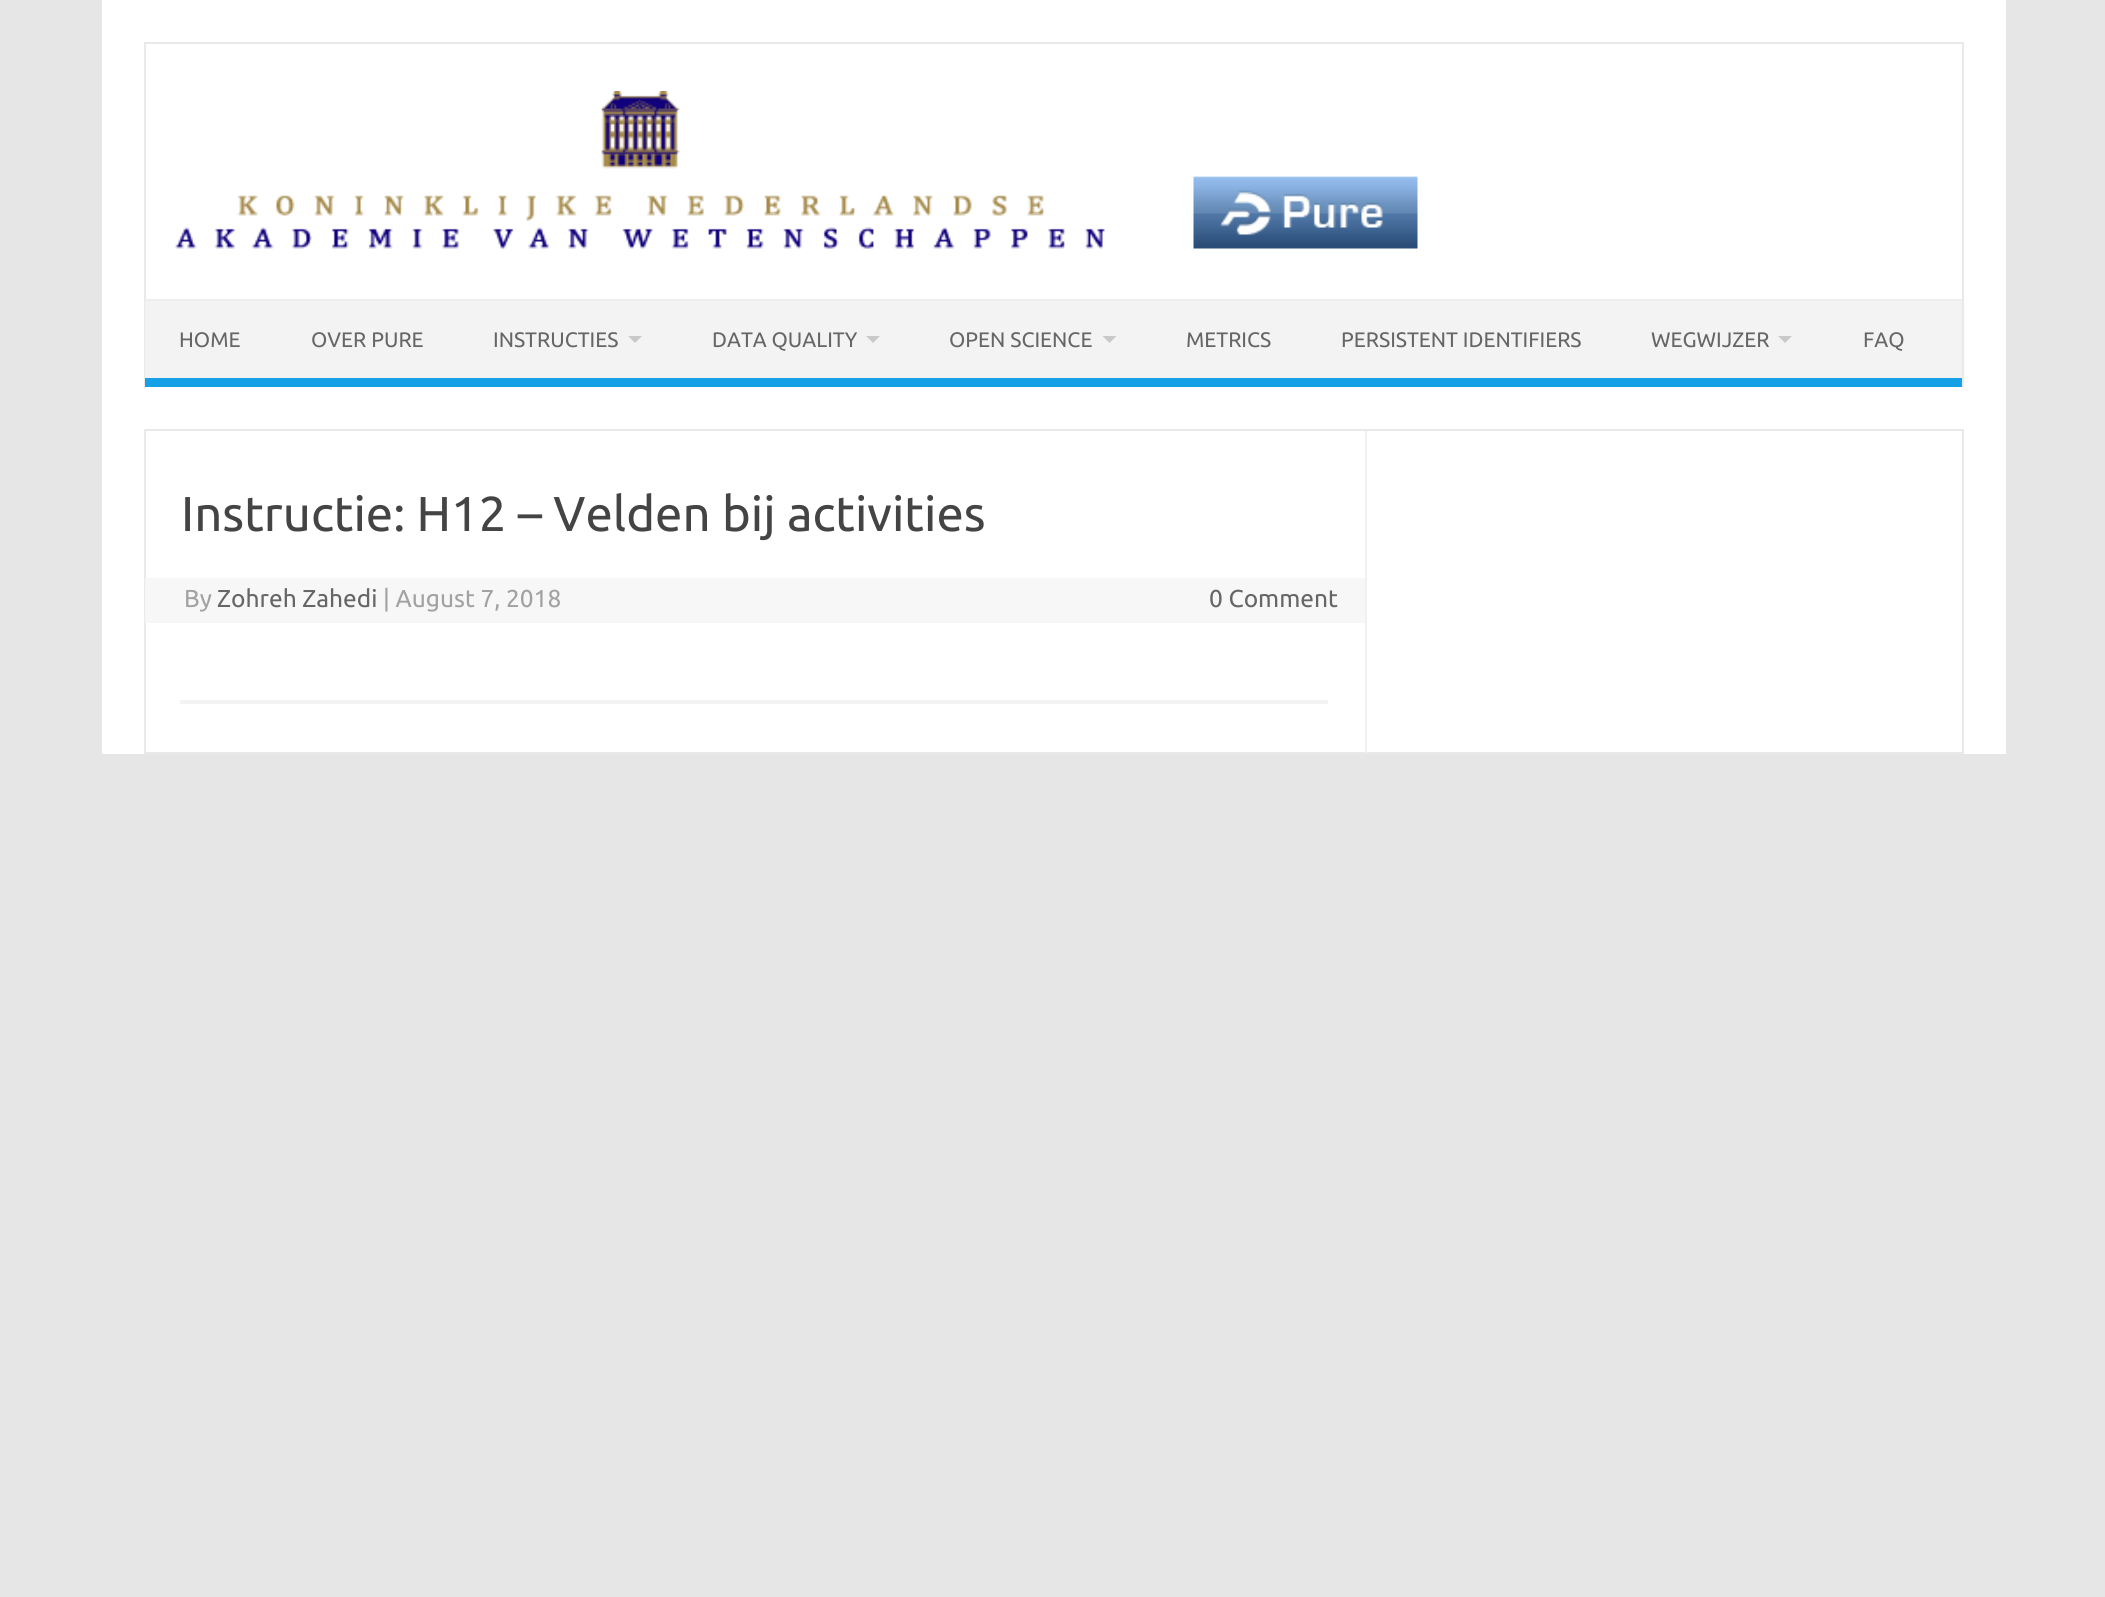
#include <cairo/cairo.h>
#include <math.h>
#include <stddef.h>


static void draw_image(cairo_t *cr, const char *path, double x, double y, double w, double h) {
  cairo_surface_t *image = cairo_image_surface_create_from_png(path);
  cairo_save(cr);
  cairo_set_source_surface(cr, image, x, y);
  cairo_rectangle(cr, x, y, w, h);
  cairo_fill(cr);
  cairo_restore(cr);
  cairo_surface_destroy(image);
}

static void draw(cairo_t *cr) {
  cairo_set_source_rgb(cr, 230 / 255.0, 230 / 255.0, 230 / 255.0);
  cairo_paint(cr);
  cairo_set_source_rgb(cr, 1, 1, 1);
  cairo_rectangle(cr, 102, 0, 1904, 754);
  cairo_fill(cr);
  cairo_set_source_rgb(cr, 233 / 255.0, 233 / 255.0, 233 / 255.0);
  cairo_rectangle(cr, 144, 42, 1820, 2);
  cairo_fill(cr);
  cairo_rectangle(cr, 1962, 42, 2, 345);
  cairo_fill(cr);
  cairo_rectangle(cr, 144, 42, 2, 345);
  cairo_fill(cr);
  draw_image(cr, "images/1.png", 175, 91, 1243, 158);
  cairo_set_source_rgb(cr, 243 / 255.0, 243 / 255.0, 243 / 255.0);
  cairo_rectangle(cr, 145, 301, 1817, 77);
  cairo_fill(cr);
  cairo_set_source_rgb(cr, 237 / 255.0, 237 / 255.0, 237 / 255.0);
  cairo_rectangle(cr, 145, 299, 1817, 2);
  cairo_fill(cr);
  cairo_set_source_rgb(cr, 22 / 255.0, 161 / 255.0, 231 / 255.0);
  cairo_rectangle(cr, 145, 378, 1817, 9);
  cairo_fill(cr);
  cairo_set_source_rgb(cr, 201 / 255.0, 201 / 255.0, 201 / 255.0);
  cairo_new_path(cr);
  cairo_move_to(cr, 628, 336);
  cairo_line_to(cr, 642, 336);
  cairo_line_to(cr, 635, 343);
  cairo_close_path(cr);
  cairo_fill(cr);
  cairo_new_path(cr);
  cairo_move_to(cr, 866, 336);
  cairo_line_to(cr, 880, 336);
  cairo_line_to(cr, 873, 343);
  cairo_close_path(cr);
  cairo_fill(cr);
  cairo_new_path(cr);
  cairo_move_to(cr, 1102.5, 336);
  cairo_line_to(cr, 1116.5, 336);
  cairo_line_to(cr, 1109.5, 343);
  cairo_close_path(cr);
  cairo_fill(cr);
  cairo_new_path(cr);
  cairo_move_to(cr, 1778, 336);
  cairo_line_to(cr, 1792, 336);
  cairo_line_to(cr, 1785, 343);
  cairo_close_path(cr);
  cairo_fill(cr);
  cairo_rectangle(cr, 145, 430, 1818, 323);
  cairo_set_source_rgb(cr, 233 / 255.0, 233 / 255.0, 233 / 255.0);
  cairo_stroke(cr);
  cairo_set_source_rgb(cr, 241 / 255.0, 241 / 255.0, 241 / 255.0);
  cairo_rectangle(cr, 1365, 431, 2, 322);
  cairo_fill(cr);
  cairo_set_source_rgb(cr, 243 / 255.0, 243 / 255.0, 243 / 255.0);
  cairo_rectangle(cr, 180, 700, 1148, 4);
  cairo_fill(cr);
  cairo_set_source_rgb(cr, 247 / 255.0, 247 / 255.0, 247 / 255.0);
  cairo_rectangle(cr, 145, 578, 1220, 45);
  cairo_fill(cr);
  cairo_select_font_face(cr, "Ubuntu", CAIRO_FONT_SLANT_NORMAL, CAIRO_FONT_WEIGHT_NORMAL);
  cairo_set_font_size(cr, 21);
  cairo_set_source_rgb(cr, 102 / 255.0, 102 / 255.0, 102 / 255.0);
  cairo_move_to(cr, 179, 347);
  cairo_show_text(cr, "HOME");
  cairo_move_to(cr, 311, 347);
  cairo_show_text(cr, "OVER PURE");
  cairo_move_to(cr, 493, 347);
  cairo_show_text(cr, "INSTRUCTIES");
  cairo_move_to(cr, 712, 347);
  cairo_show_text(cr, "DATA QUALITY");
  cairo_move_to(cr, 949, 347);
  cairo_show_text(cr, "OPEN SCIENCE");
  cairo_move_to(cr, 1186, 347);
  cairo_show_text(cr, "METRICS");
  cairo_move_to(cr, 1341, 347);
  cairo_show_text(cr, "PERSISTENT IDENTIFIERS");
  cairo_move_to(cr, 1651, 347);
  cairo_show_text(cr, "WEGWIJZER");
  cairo_move_to(cr, 1863, 347);
  cairo_show_text(cr, "FAQ");
  cairo_set_font_size(cr, 49);
  cairo_set_source_rgb(cr, 68 / 255.0, 68 / 255.0, 68 / 255.0);
  cairo_move_to(cr, 181, 531);
  cairo_show_text(cr, "Instructie: H12 – Velden bij activities");
  cairo_set_font_size(cr, 24.5);
  cairo_set_source_rgb(cr, 162 / 255.0, 162 / 255.0, 162 / 255.0);
  cairo_move_to(cr, 184, 607);
  cairo_show_text(cr, "By");
  cairo_set_source_rgb(cr, 102 / 255.0, 102 / 255.0, 102 / 255.0);
  cairo_move_to(cr, 217, 607);
  cairo_show_text(cr, "Zohreh Zahedi");
  cairo_set_source_rgb(cr, 162 / 255.0, 162 / 255.0, 162 / 255.0);
  cairo_move_to(cr, 383, 607);
  cairo_show_text(cr, "| August 7, 2018");
  cairo_set_source_rgb(cr, 102 / 255.0, 102 / 255.0, 102 / 255.0);
  cairo_move_to(cr, 1209, 607);
  cairo_show_text(cr, "0 Comment");
}

int main(void) {
  cairo_surface_t *surface = cairo_image_surface_create(CAIRO_FORMAT_RGB24, 2105, 1597);
  cairo_t *cr = cairo_create(surface);
  cairo_font_options_t *options = cairo_font_options_create();
  cairo_font_options_set_hint_metrics(options, CAIRO_HINT_METRICS_OFF);
  cairo_font_options_set_hint_style(options, CAIRO_HINT_STYLE_NONE);
  cairo_set_font_options(cr, options);
  cairo_set_miter_limit(cr, 4);
  draw(cr);
  cairo_surface_write_to_png(surface, "out.png");
  cairo_font_options_destroy(options);
  cairo_destroy(cr);
  cairo_surface_destroy(surface);
  return 0;
}
